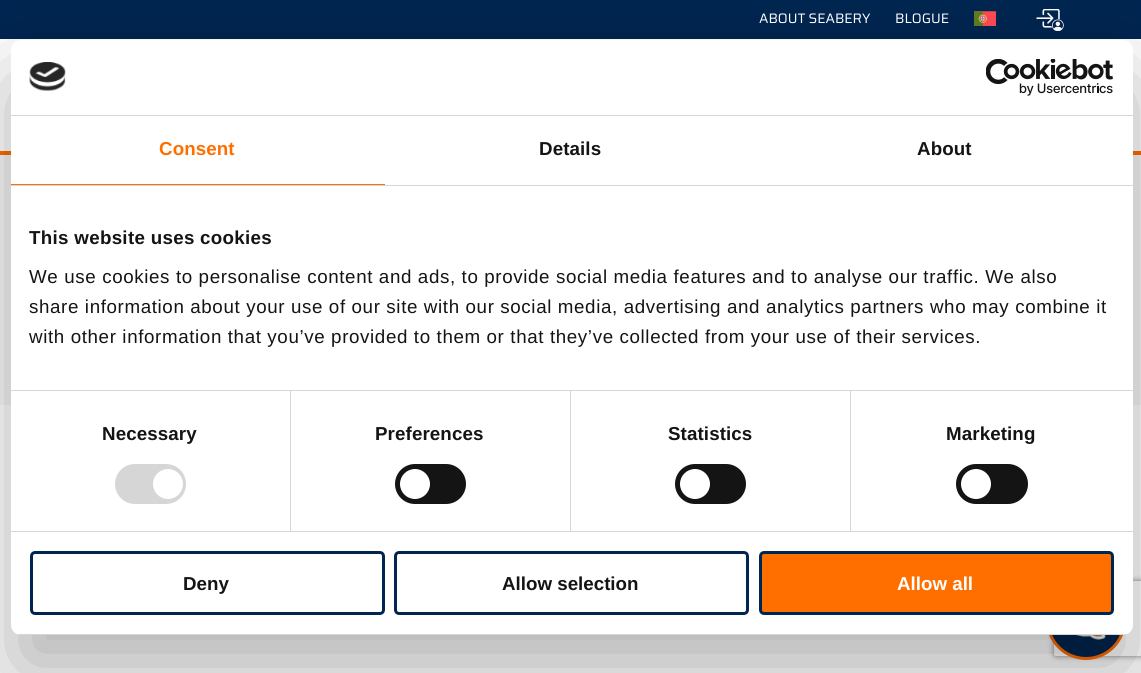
#include <cairo/cairo.h>
#include <math.h>
#include <stddef.h>


static void draw_spaced(cairo_t *cr, double x, double y, const char *s, double letter, double word) {
  cairo_move_to(cr, x, y);
  while (*s) {
    char ch[5] = {0};
    int n = 0;
    do ch[n++] = *s++; while ((*s & 0xC0) == 0x80);
    cairo_show_text(cr, ch);
    cairo_rel_move_to(cr, letter + word * (*ch == ' '), 0);
  }
}

static void rounded_rect(cairo_t *cr, double x, double y, double w, double h, double r) {
  cairo_new_sub_path(cr);
  cairo_arc(cr, x + w - r, y + h - r, r, 0, M_PI / 2);
  cairo_arc(cr, x + r, y + h - r, r, M_PI / 2, M_PI);
  cairo_arc(cr, x + r, y + r, r, M_PI, 1.5 * M_PI);
  cairo_arc(cr, x + w - r, y + r, r, 1.5 * M_PI, 2 * M_PI);
  cairo_close_path(cr);
}

static void draw_shadow(cairo_t *cr, double x, double y, double w, double h, double r, double blur, double alpha) {
  cairo_push_group_with_content(cr, CAIRO_CONTENT_ALPHA);
  cairo_set_operator(cr, CAIRO_OPERATOR_SOURCE);
  for (int i = 15; i >= -15 && fmin(w, h) + blur * i / 3 > 0; i -= 2) {
    double e = blur * i / 6;
    cairo_set_source_rgba(cr, 0, 0, 0, alpha * erfc((i - 1) / 8.5) / 2);
    rounded_rect(cr, x - e, y - e, w + 2 * e, h + 2 * e, fmax(0, fmin(r + e + blur * .6, fmin(w, h) / 2 + e)));
    cairo_fill(cr);
  }
  cairo_pattern_t *soft = cairo_pop_group(cr);
  cairo_mask(cr, soft);
  cairo_pattern_destroy(soft);
}

static void draw_image(cairo_t *cr, const char *path, double x, double y, double w, double h) {
  cairo_surface_t *image = cairo_image_surface_create_from_png(path);
  cairo_save(cr);
  cairo_set_source_surface(cr, image, x, y);
  cairo_rectangle(cr, x, y, w, h);
  cairo_fill(cr);
  cairo_restore(cr);
  cairo_surface_destroy(image);
}

static void draw(cairo_t *cr) {
  cairo_set_source_rgb(cr, 1, 1, 1);
  cairo_paint(cr);
  cairo_set_source_rgb(cr, 1, 107 / 255.0, 0);
  cairo_rectangle(cr, 0, 151, 1141, 4);
  cairo_fill(cr);
  cairo_set_source_rgb(cr, 0, 37 / 255.0, 80 / 255.0);
  cairo_rectangle(cr, 0, 0, 1141, 39);
  cairo_fill(cr);
  draw_image(cr, "images/1.png", 974, 11, 22, 15);
  draw_image(cr, "images/2.png", 1036, 9, 28, 22);
  cairo_set_source_rgb(cr, 246 / 255.0, 246 / 255.0, 246 / 255.0);
  cairo_rectangle(cr, 0, 155, 1141, 250);
  cairo_fill(cr);
  cairo_save(cr);
  cairo_set_fill_rule(cr, CAIRO_FILL_RULE_EVEN_ODD);
  cairo_new_path(cr);
  cairo_move_to(cr, 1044, 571);
  cairo_line_to(cr, 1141, 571);
  cairo_line_to(cr, 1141, 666);
  cairo_line_to(cr, 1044, 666);
  cairo_close_path(cr);
  cairo_move_to(cr, 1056.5, 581);
  cairo_line_to(cr, 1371.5, 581);
  cairo_curve_to(cr, 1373, 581, 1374, 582, 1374, 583.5);
  cairo_line_to(cr, 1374, 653.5);
  cairo_curve_to(cr, 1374, 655, 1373, 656, 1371.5, 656);
  cairo_line_to(cr, 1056.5, 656);
  cairo_curve_to(cr, 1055, 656, 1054, 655, 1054, 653.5);
  cairo_line_to(cr, 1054, 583.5);
  cairo_curve_to(cr, 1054, 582, 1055, 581, 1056.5, 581);
  cairo_close_path(cr);
  cairo_clip(cr);
  cairo_set_source_rgb(cr, 128 / 255.0, 128 / 255.0, 128 / 255.0);
  draw_shadow(cr, 1054, 581, 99, 75, 2.5, 3, 1);
  cairo_restore(cr);
  cairo_set_source_rgb(cr, 0, 37 / 255.0, 80 / 255.0);
  cairo_arc(cr, 1086, 620, 38.5, 0, 2 * M_PI);
  cairo_fill_preserve(cr);
  cairo_set_source_rgb(cr, 1, 107 / 255.0, 0);
  cairo_set_line_width(cr, 3);
  cairo_stroke(cr);
  draw_image(cr, "images/5.png", 1076, 635, 31, 5);
  cairo_set_source_rgb(cr, 0, 0, 0);
  draw_shadow(cr, 11, 80, 1122, 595, 10, 42.5, 0.3);
  cairo_set_source_rgb(cr, 1, 1, 1);
  rounded_rect(cr, 11, 40, 1122, 595, 10);
  cairo_fill(cr);
  cairo_set_source_rgb(cr, 214 / 255.0, 214 / 255.0, 214 / 255.0);
  cairo_rectangle(cr, 11, 115, 1122, 1);
  cairo_fill(cr);
  draw_image(cr, "images/3.png", 29, 62, 37, 29);
  draw_image(cr, "images/4.png", 986, 59, 127, 37);
  cairo_rectangle(cr, 11, 185, 1122, 1);
  cairo_fill(cr);
  cairo_set_source_rgb(cr, 1, 111 / 255.0, 0);
  cairo_rectangle(cr, 11, 184, 374, 1);
  cairo_fill(cr);
  cairo_set_source_rgb(cr, 214 / 255.0, 214 / 255.0, 214 / 255.0);
  cairo_rectangle(cr, 11, 390, 1122, 1);
  cairo_fill(cr);
  cairo_rectangle(cr, 11, 531, 1122, 1);
  cairo_fill(cr);
  cairo_rectangle(cr, 290, 391, 1, 140);
  cairo_fill(cr);
  rounded_rect(cr, 115, 464, 71, 40, 20);
  cairo_fill(cr);
  cairo_set_source_rgb(cr, 1, 1, 1);
  cairo_arc(cr, 168, 484, 15, 0, 2 * M_PI);
  cairo_fill(cr);
  cairo_set_source_rgb(cr, 214 / 255.0, 214 / 255.0, 214 / 255.0);
  cairo_rectangle(cr, 570, 391, 1, 140);
  cairo_fill(cr);
  cairo_set_source_rgb(cr, 20 / 255.0, 20 / 255.0, 20 / 255.0);
  rounded_rect(cr, 395, 464, 71, 40, 20);
  cairo_fill(cr);
  cairo_set_source_rgb(cr, 1, 1, 1);
  cairo_arc(cr, 415, 484, 15, 0, 2 * M_PI);
  cairo_fill(cr);
  cairo_set_source_rgb(cr, 214 / 255.0, 214 / 255.0, 214 / 255.0);
  cairo_rectangle(cr, 850, 391, 1, 140);
  cairo_fill(cr);
  cairo_set_source_rgb(cr, 20 / 255.0, 20 / 255.0, 20 / 255.0);
  rounded_rect(cr, 675, 464, 71, 40, 20);
  cairo_fill(cr);
  cairo_set_source_rgb(cr, 1, 1, 1);
  cairo_arc(cr, 695, 484, 15, 0, 2 * M_PI);
  cairo_fill(cr);
  cairo_set_source_rgb(cr, 20 / 255.0, 20 / 255.0, 20 / 255.0);
  rounded_rect(cr, 956, 464, 72, 40, 20);
  cairo_fill(cr);
  cairo_set_source_rgb(cr, 1, 1, 1);
  cairo_arc(cr, 976, 484, 15, 0, 2 * M_PI);
  cairo_fill(cr);
  cairo_save(cr);
  rounded_rect(cr, 11, 40, 1122, 595, 10);
  cairo_clip(cr);
  cairo_set_source_rgb(cr, 214 / 255.0, 214 / 255.0, 214 / 255.0);
  cairo_rectangle(cr, 11, 634, 1122, 1);
  cairo_fill(cr);
  cairo_restore(cr);
  rounded_rect(cr, 31.5, 552.5, 352, 61, 3.5);
  cairo_set_source_rgb(cr, 0, 37 / 255.0, 80 / 255.0);
  cairo_stroke(cr);
  rounded_rect(cr, 395.5, 552.5, 352, 61, 3.5);
  cairo_stroke(cr);
  cairo_set_source_rgb(cr, 1, 111 / 255.0, 0);
  rounded_rect(cr, 760.5, 552.5, 352, 61, 3.5);
  cairo_fill_preserve(cr);
  cairo_set_source_rgb(cr, 0, 37 / 255.0, 80 / 255.0);
  cairo_stroke(cr);
  cairo_select_font_face(cr, "Saira", CAIRO_FONT_SLANT_NORMAL, CAIRO_FONT_WEIGHT_NORMAL);
  cairo_set_font_size(cr, 13.75);
  cairo_set_source_rgb(cr, 1, 1, 1);
  cairo_move_to(cr, 759, 23);
  cairo_show_text(cr, "ABOUT SEABERY");
  cairo_move_to(cr, 895, 23);
  cairo_show_text(cr, "BLOGUE");
  cairo_select_font_face(cr, "Liberation Sans", CAIRO_FONT_SLANT_NORMAL, CAIRO_FONT_WEIGHT_BOLD);
  cairo_set_font_size(cr, 18.75);
  cairo_set_source_rgb(cr, 1, 111 / 255.0, 0);
  draw_spaced(cr, 159, 155, "Consent", 0.1, 0);
  cairo_set_source_rgb(cr, 20 / 255.0, 20 / 255.0, 20 / 255.0);
  draw_spaced(cr, 539, 155, "Details", 0.1, 0);
  draw_spaced(cr, 917, 155, "About", 0.1, 0);
  draw_spaced(cr, 29, 244, "This website uses cookies", 0.3, 0);
  cairo_select_font_face(cr, "Liberation Sans", CAIRO_FONT_SLANT_NORMAL, CAIRO_FONT_WEIGHT_NORMAL);
  draw_spaced(cr, 29, 283, "We use cookies to personalise content and ads, to provide social media features and to analyse our traffic. We also", 0.62, 0);
  draw_spaced(cr, 29, 313, "share information about your use of our site with our social media, advertising and analytics partners who may combine it", 0.62, 0);
  draw_spaced(cr, 29, 343, "with other information that you’ve provided to them or that they’ve collected from your use of their services.", 0.62, 0);
  cairo_select_font_face(cr, "Liberation Sans", CAIRO_FONT_SLANT_NORMAL, CAIRO_FONT_WEIGHT_BOLD);
  draw_spaced(cr, 102, 440, "Necessary", 0.1, 0);
  draw_spaced(cr, 375, 440, "Preferences", 0.1, 0);
  draw_spaced(cr, 668, 440, "Statistics", 0.1, 0);
  draw_spaced(cr, 946, 440, "Marketing", 0.1, 0);
  cairo_move_to(cr, 183, 590);
  cairo_show_text(cr, "Deny");
  cairo_move_to(cr, 502, 590);
  cairo_show_text(cr, "Allow selection");
  cairo_set_source_rgb(cr, 1, 1, 1);
  cairo_move_to(cr, 897, 590);
  cairo_show_text(cr, "Allow all");
}

int main(void) {
  cairo_surface_t *surface = cairo_image_surface_create(CAIRO_FORMAT_RGB24, 1141, 673);
  cairo_t *cr = cairo_create(surface);
  cairo_font_options_t *options = cairo_font_options_create();
  cairo_font_options_set_hint_metrics(options, CAIRO_HINT_METRICS_OFF);
  cairo_font_options_set_hint_style(options, CAIRO_HINT_STYLE_NONE);
  cairo_set_font_options(cr, options);
  cairo_set_miter_limit(cr, 4);
  draw(cr);
  cairo_surface_write_to_png(surface, "out.png");
  cairo_font_options_destroy(options);
  cairo_destroy(cr);
  cairo_surface_destroy(surface);
  return 0;
}
